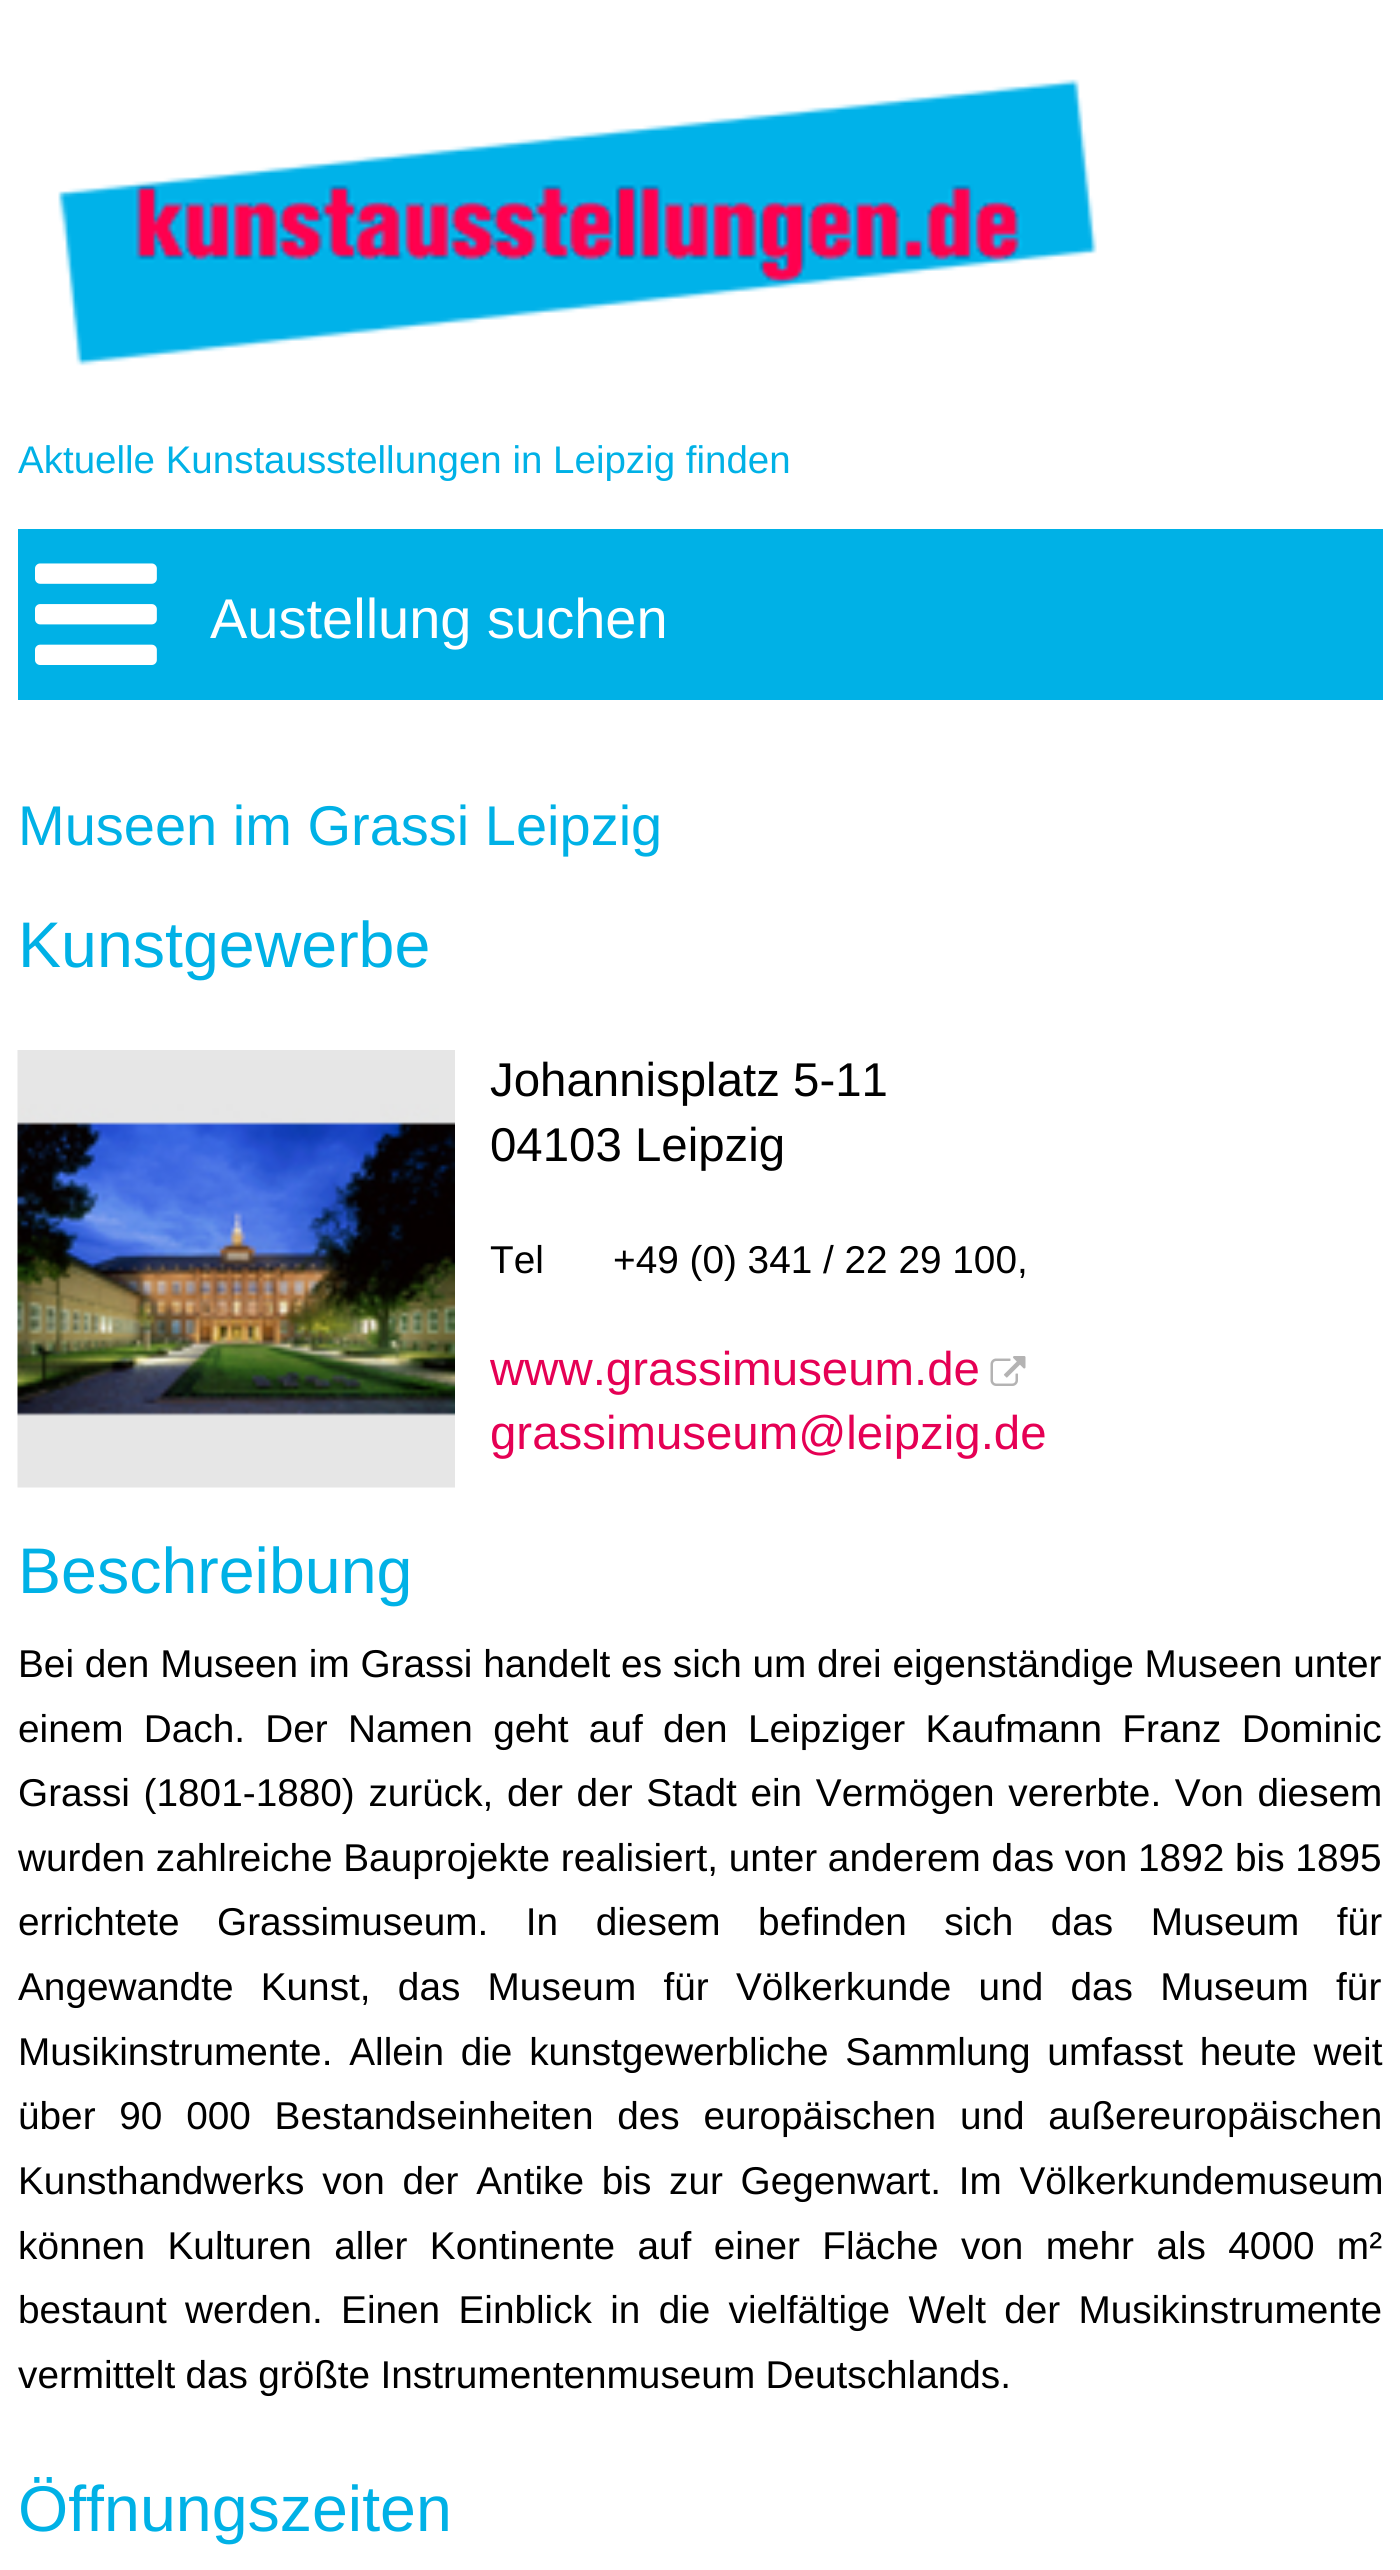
#include <cairo/cairo.h>
#include <math.h>
#include <stddef.h>


static void draw_spaced(cairo_t *cr, double x, double y, const char *s, double letter, double word) {
  cairo_move_to(cr, x, y);
  while (*s) {
    char ch[5] = {0};
    int n = 0;
    do ch[n++] = *s++; while ((*s & 0xC0) == 0x80);
    cairo_show_text(cr, ch);
    cairo_rel_move_to(cr, letter + word * (*ch == ' '), 0);
  }
}

static void draw_image(cairo_t *cr, const char *path, double x, double y, double w, double h) {
  cairo_surface_t *image = cairo_image_surface_create_from_png(path);
  cairo_save(cr);
  cairo_set_source_surface(cr, image, x, y);
  cairo_rectangle(cr, x, y, w, h);
  cairo_fill(cr);
  cairo_restore(cr);
  cairo_surface_destroy(image);
}

static void draw(cairo_t *cr) {
  cairo_set_source_rgb(cr, 1, 1, 1);
  cairo_paint(cr);
  draw_image(cr, "images/1.png", 58, 79, 1039, 287);
  cairo_set_source_rgb(cr, 0, 177 / 255.0, 230 / 255.0);
  cairo_rectangle(cr, 18, 529, 1365, 171);
  cairo_fill(cr);
  draw_image(cr, "images/2.png", 35, 563, 122, 102);
  draw_image(cr, "images/3.png", 17, 1050, 438, 438);
  draw_image(cr, "images/4.png", 990, 1356, 36, 30);
  cairo_select_font_face(cr, "Liberation Sans", CAIRO_FONT_SLANT_NORMAL, CAIRO_FONT_WEIGHT_NORMAL);
  cairo_set_font_size(cr, 38.5);
  cairo_move_to(cr, 18, 473);
  cairo_show_text(cr, "Aktuelle Kunstausstellungen in Leipzig finden");
  cairo_set_font_size(cr, 56);
  cairo_set_source_rgb(cr, 1, 1, 1);
  cairo_move_to(cr, 210, 638);
  cairo_show_text(cr, "Austellung suchen");
  cairo_set_source_rgb(cr, 0, 177 / 255.0, 230 / 255.0);
  cairo_move_to(cr, 18, 845);
  cairo_show_text(cr, "Museen im Grassi Leipzig");
  cairo_set_font_size(cr, 64.5);
  cairo_move_to(cr, 18, 967);
  cairo_show_text(cr, "Kunstgewerbe");
  cairo_set_font_size(cr, 47.4);
  cairo_set_source_rgb(cr, 0, 0, 0);
  cairo_move_to(cr, 490, 1096);
  cairo_show_text(cr, "Johannisplatz 5-11");
  cairo_move_to(cr, 490, 1161);
  cairo_show_text(cr, "04103 Leipzig");
  cairo_set_font_size(cr, 38.75);
  cairo_move_to(cr, 490, 1273);
  cairo_show_text(cr, "Tel");
  cairo_move_to(cr, 613, 1273);
  cairo_show_text(cr, "+49 (0) 341 / 22 29 100,");
  cairo_set_font_size(cr, 47.4);
  cairo_set_source_rgb(cr, 229 / 255.0, 0, 84 / 255.0);
  cairo_move_to(cr, 490, 1385);
  cairo_show_text(cr, "www.grassimuseum.de");
  cairo_move_to(cr, 490, 1449);
  cairo_show_text(cr, "grassimuseum@leipzig.de");
  cairo_set_font_size(cr, 64.5);
  cairo_set_source_rgb(cr, 0, 177 / 255.0, 230 / 255.0);
  cairo_move_to(cr, 18, 1593);
  cairo_show_text(cr, "Beschreibung");
  cairo_set_font_size(cr, 38.75);
  cairo_set_source_rgb(cr, 0, 0, 0);
  cairo_move_to(cr, 18, 1677);
  cairo_show_text(cr, "Bei den Museen im Grassi handelt es sich um drei eigenständige Museen unter");
  draw_spaced(cr, 18, 1742, "einem Dach. Der Namen geht auf den Leipziger Kaufmann Franz Dominic", 0, 9.5);
  draw_spaced(cr, 18, 1806, "Grassi (1801-1880) zurück, der der Stadt ein Vermögen vererbte. Von diesem", 0, 2.9);
  cairo_move_to(cr, 18, 1871);
  cairo_show_text(cr, "wurden zahlreiche Bauprojekte realisiert, unter anderem das von 1892 bis 1895");
  draw_spaced(cr, 18, 1935, "errichtete Grassimuseum. In diesem befinden sich das Museum für", 0, 26.75);
  draw_spaced(cr, 18, 2000, "Angewandte Kunst, das Museum für Völkerkunde und das Museum für", 0, 16.5);
  draw_spaced(cr, 18, 2065, "Musikinstrumente. Allein die kunstgewerbliche Sammlung umfasst heute weit", 0, 6);
  draw_spaced(cr, 18, 2129, "über 90 000 Bestandseinheiten des europäischen und außereuropäischen", 0, 13);
  draw_spaced(cr, 18, 2194, "Kunsthandwerks von der Antike bis zur Gegenwart. Im Völkerkundemuseum", 0, 7);
  draw_spaced(cr, 18, 2259, "können Kulturen aller Kontinente auf einer Fläche von mehr als 4000 m²", 0, 11.6);
  draw_spaced(cr, 18, 2323, "bestaunt werden. Einen Einblick in die vielfältige Welt der Musikinstrumente", 0, 7.5);
  draw_spaced(cr, 18, 2388, "vermittelt das größte Instrumentenmuseum Deutschlands.", 0, -0.5);
  cairo_set_font_size(cr, 64.5);
  cairo_set_source_rgb(cr, 0, 177 / 255.0, 230 / 255.0);
  cairo_move_to(cr, 18, 2531);
  cairo_show_text(cr, "Öffnungszeiten");
}

int main(void) {
  cairo_surface_t *surface = cairo_image_surface_create(CAIRO_FORMAT_RGB24, 1400, 2570);
  cairo_t *cr = cairo_create(surface);
  cairo_font_options_t *options = cairo_font_options_create();
  cairo_font_options_set_hint_metrics(options, CAIRO_HINT_METRICS_OFF);
  cairo_font_options_set_hint_style(options, CAIRO_HINT_STYLE_NONE);
  cairo_set_font_options(cr, options);
  cairo_set_miter_limit(cr, 4);
  draw(cr);
  cairo_surface_write_to_png(surface, "out.png");
  cairo_font_options_destroy(options);
  cairo_destroy(cr);
  cairo_surface_destroy(surface);
  return 0;
}
